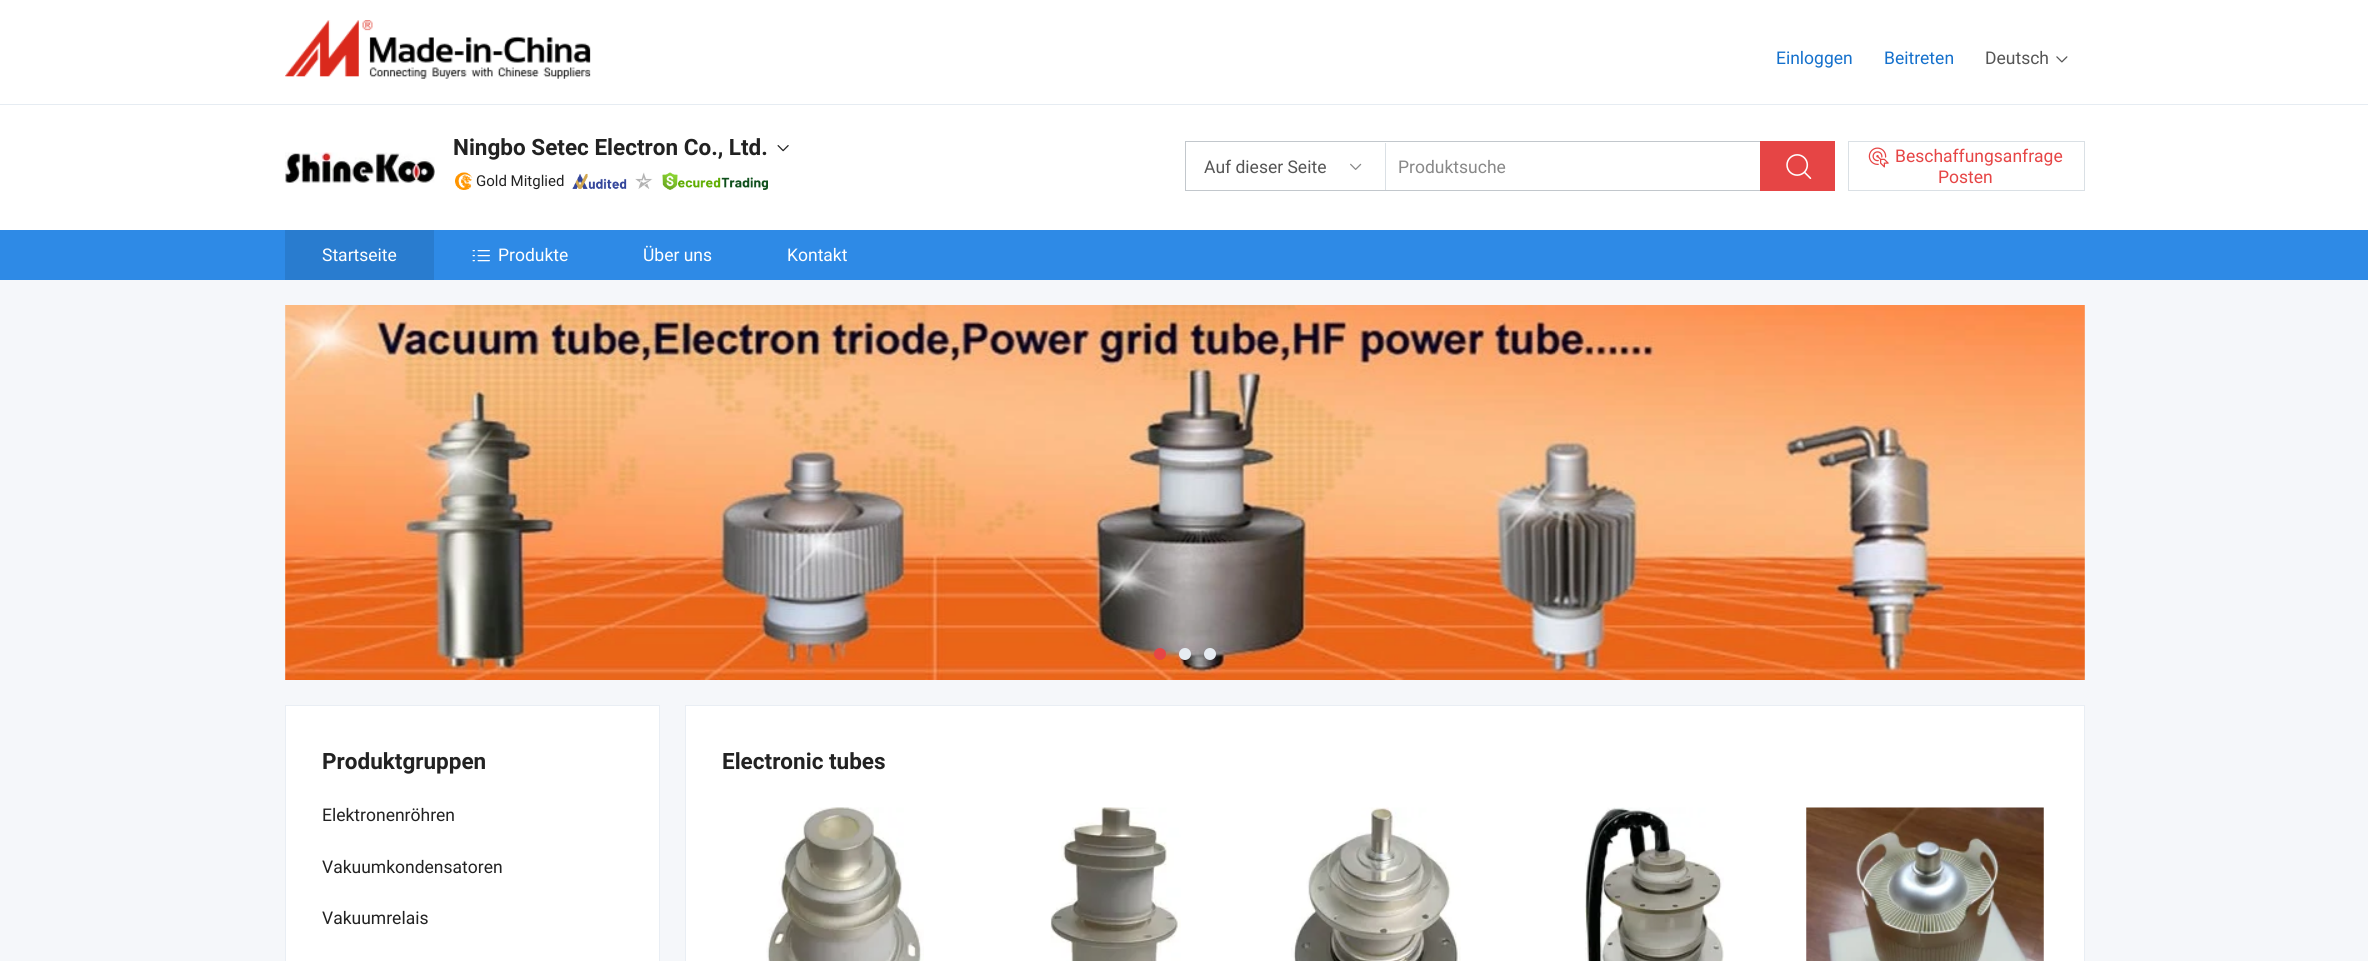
#include <cairo/cairo.h>
#include <math.h>
#include <stddef.h>


static void draw_image(cairo_t *cr, const char *path, double x, double y, double w, double h) {
  cairo_surface_t *image = cairo_image_surface_create_from_png(path);
  cairo_save(cr);
  cairo_set_source_surface(cr, image, x, y);
  cairo_rectangle(cr, x, y, w, h);
  cairo_fill(cr);
  cairo_restore(cr);
  cairo_surface_destroy(image);
}

static void draw(cairo_t *cr) {
  cairo_set_source_rgb(cr, 1, 1, 1);
  cairo_paint(cr);
  cairo_set_source_rgb(cr, 230 / 255.0, 236 / 255.0, 242 / 255.0);
  cairo_rectangle(cr, 0, 104, 2368, 1);
  cairo_fill(cr);
  draw_image(cr, "images/1.png", 285, 152, 150, 31);
  draw_image(cr, "images/2.png", 777, 145, 12, 7);
  draw_image(cr, "images/3.png", 455, 172, 18, 18);
  draw_image(cr, "images/4.png", 572, 173, 55, 16);
  draw_image(cr, "images/5.png", 635, 172, 18, 17);
  draw_image(cr, "images/6.png", 662, 172, 106, 18);
  draw_image(cr, "images/7.png", 285, 20, 306, 59);
  draw_image(cr, "images/8.png", 2056, 56, 12, 7);
  cairo_rectangle(cr, 1185.5, 141.5, 649, 49);
  cairo_set_source_rgb(cr, 194 / 255.0, 199 / 255.0, 204 / 255.0);
  cairo_set_line_width(cr, 1);
  cairo_stroke(cr);
  cairo_set_source_rgb(cr, 218 / 255.0, 224 / 255.0, 229 / 255.0);
  cairo_rectangle(cr, 1385, 143, 1, 47);
  cairo_fill(cr);
  draw_image(cr, "images/9.png", 1350, 163, 12, 7);
  cairo_set_source_rgb(cr, 230 / 255.0, 69 / 255.0, 69 / 255.0);
  cairo_rectangle(cr, 1760, 141, 75, 50);
  cairo_fill(cr);
  draw_image(cr, "images/10.png", 1786, 154, 26, 25);
  cairo_rectangle(cr, 1848.5, 141.5, 236, 49);
  cairo_set_source_rgb(cr, 218 / 255.0, 224 / 255.0, 229 / 255.0);
  cairo_stroke(cr);
  draw_image(cr, "images/11.png", 1868, 147, 21, 21);
  cairo_set_source_rgb(cr, 46 / 255.0, 138 / 255.0, 230 / 255.0);
  cairo_rectangle(cr, 0, 230, 2368, 50);
  cairo_fill(cr);
  cairo_set_source_rgb(cr, 41 / 255.0, 124 / 255.0, 207 / 255.0);
  cairo_rectangle(cr, 285, 230, 149, 50);
  cairo_fill(cr);
  draw_image(cr, "images/12.png", 472, 250, 18, 12);
  cairo_set_source_rgb(cr, 245 / 255.0, 247 / 255.0, 250 / 255.0);
  cairo_rectangle(cr, 0, 280, 2368, 681);
  cairo_fill(cr);
  draw_image(cr, "images/13.png", 285, 305, 1800, 375);
  cairo_set_source_rgb(cr, 230 / 255.0, 69 / 255.0, 69 / 255.0);
  cairo_arc(cr, 1160, 654, 6, 0, 2 * M_PI);
  cairo_fill(cr);
  cairo_set_source_rgb(cr, 230 / 255.0, 236 / 255.0, 242 / 255.0);
  cairo_arc(cr, 1185, 654, 6, 0, 2 * M_PI);
  cairo_fill(cr);
  cairo_arc(cr, 1210, 654, 6, 0, 2 * M_PI);
  cairo_fill(cr);
  cairo_set_source_rgb(cr, 1, 1, 1);
  cairo_rectangle(cr, 285.5, 705.5, 374, 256);
  cairo_fill_preserve(cr);
  cairo_set_source_rgb(cr, 233 / 255.0, 238 / 255.0, 244 / 255.0);
  cairo_stroke(cr);
  cairo_set_source_rgb(cr, 1, 1, 1);
  cairo_rectangle(cr, 685.5, 705.5, 1399, 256);
  cairo_fill_preserve(cr);
  cairo_set_source_rgb(cr, 233 / 255.0, 238 / 255.0, 244 / 255.0);
  cairo_stroke(cr);
  draw_image(cr, "images/14.png", 766, 807, 158, 154);
  draw_image(cr, "images/15.png", 1050, 807, 131, 154);
  draw_image(cr, "images/16.png", 1291, 807, 170, 154);
  draw_image(cr, "images/17.png", 1585, 807, 139, 154);
  draw_image(cr, "images/18.png", 1806, 807, 238, 154);
  cairo_select_font_face(cr, "Roboto", CAIRO_FONT_SLANT_NORMAL, CAIRO_FONT_WEIGHT_BOLD);
  cairo_set_font_size(cr, 22.5);
  cairo_set_source_rgb(cr, 34 / 255.0, 34 / 255.0, 34 / 255.0);
  cairo_move_to(cr, 453, 155);
  cairo_show_text(cr, "Ningbo Setec Electron Co., Ltd.");
  cairo_select_font_face(cr, "Roboto", CAIRO_FONT_SLANT_NORMAL, CAIRO_FONT_WEIGHT_NORMAL);
  cairo_set_font_size(cr, 15);
  cairo_move_to(cr, 476, 186);
  cairo_show_text(cr, "Gold Mitglied");
  cairo_set_font_size(cr, 17.5);
  cairo_set_source_rgb(cr, 20 / 255.0, 112 / 255.0, 204 / 255.0);
  cairo_move_to(cr, 1776, 64);
  cairo_show_text(cr, "Einloggen");
  cairo_move_to(cr, 1884, 64);
  cairo_show_text(cr, "Beitreten");
  cairo_set_source_rgb(cr, 85 / 255.0, 85 / 255.0, 85 / 255.0);
  cairo_move_to(cr, 1985, 64);
  cairo_show_text(cr, "Deutsch");
  cairo_move_to(cr, 1204, 173);
  cairo_show_text(cr, "Auf dieser Seite");
  cairo_set_source_rgb(cr, 136 / 255.0, 136 / 255.0, 136 / 255.0);
  cairo_move_to(cr, 1398, 173);
  cairo_show_text(cr, "Produktsuche");
  cairo_set_source_rgb(cr, 230 / 255.0, 69 / 255.0, 69 / 255.0);
  cairo_move_to(cr, 1895, 162);
  cairo_show_text(cr, "Beschaffungsanfrage");
  cairo_move_to(cr, 1938, 183);
  cairo_show_text(cr, "Posten");
  cairo_set_source_rgb(cr, 1, 1, 1);
  cairo_move_to(cr, 322, 261);
  cairo_show_text(cr, "Startseite");
  cairo_move_to(cr, 498, 261);
  cairo_show_text(cr, "Produkte");
  cairo_move_to(cr, 643, 261);
  cairo_show_text(cr, "Über uns");
  cairo_move_to(cr, 787, 261);
  cairo_show_text(cr, "Kontakt");
  cairo_select_font_face(cr, "Roboto", CAIRO_FONT_SLANT_NORMAL, CAIRO_FONT_WEIGHT_BOLD);
  cairo_set_font_size(cr, 22.5);
  cairo_set_source_rgb(cr, 34 / 255.0, 34 / 255.0, 34 / 255.0);
  cairo_move_to(cr, 322, 769);
  cairo_show_text(cr, "Produktgruppen");
  cairo_select_font_face(cr, "Roboto", CAIRO_FONT_SLANT_NORMAL, CAIRO_FONT_WEIGHT_NORMAL);
  cairo_set_font_size(cr, 17.5);
  cairo_move_to(cr, 322, 821);
  cairo_show_text(cr, "Elektronenröhren");
  cairo_move_to(cr, 322, 873);
  cairo_show_text(cr, "Vakuumkondensatoren");
  cairo_move_to(cr, 322, 924);
  cairo_show_text(cr, "Vakuumrelais");
  cairo_select_font_face(cr, "Roboto", CAIRO_FONT_SLANT_NORMAL, CAIRO_FONT_WEIGHT_BOLD);
  cairo_set_font_size(cr, 22.5);
  cairo_move_to(cr, 722, 769);
  cairo_show_text(cr, "Electronic tubes");
}

int main(void) {
  cairo_surface_t *surface = cairo_image_surface_create(CAIRO_FORMAT_RGB24, 2368, 961);
  cairo_t *cr = cairo_create(surface);
  cairo_font_options_t *options = cairo_font_options_create();
  cairo_font_options_set_hint_metrics(options, CAIRO_HINT_METRICS_OFF);
  cairo_font_options_set_hint_style(options, CAIRO_HINT_STYLE_NONE);
  cairo_set_font_options(cr, options);
  cairo_set_miter_limit(cr, 4);
  draw(cr);
  cairo_surface_write_to_png(surface, "out.png");
  cairo_font_options_destroy(options);
  cairo_destroy(cr);
  cairo_surface_destroy(surface);
  return 0;
}
